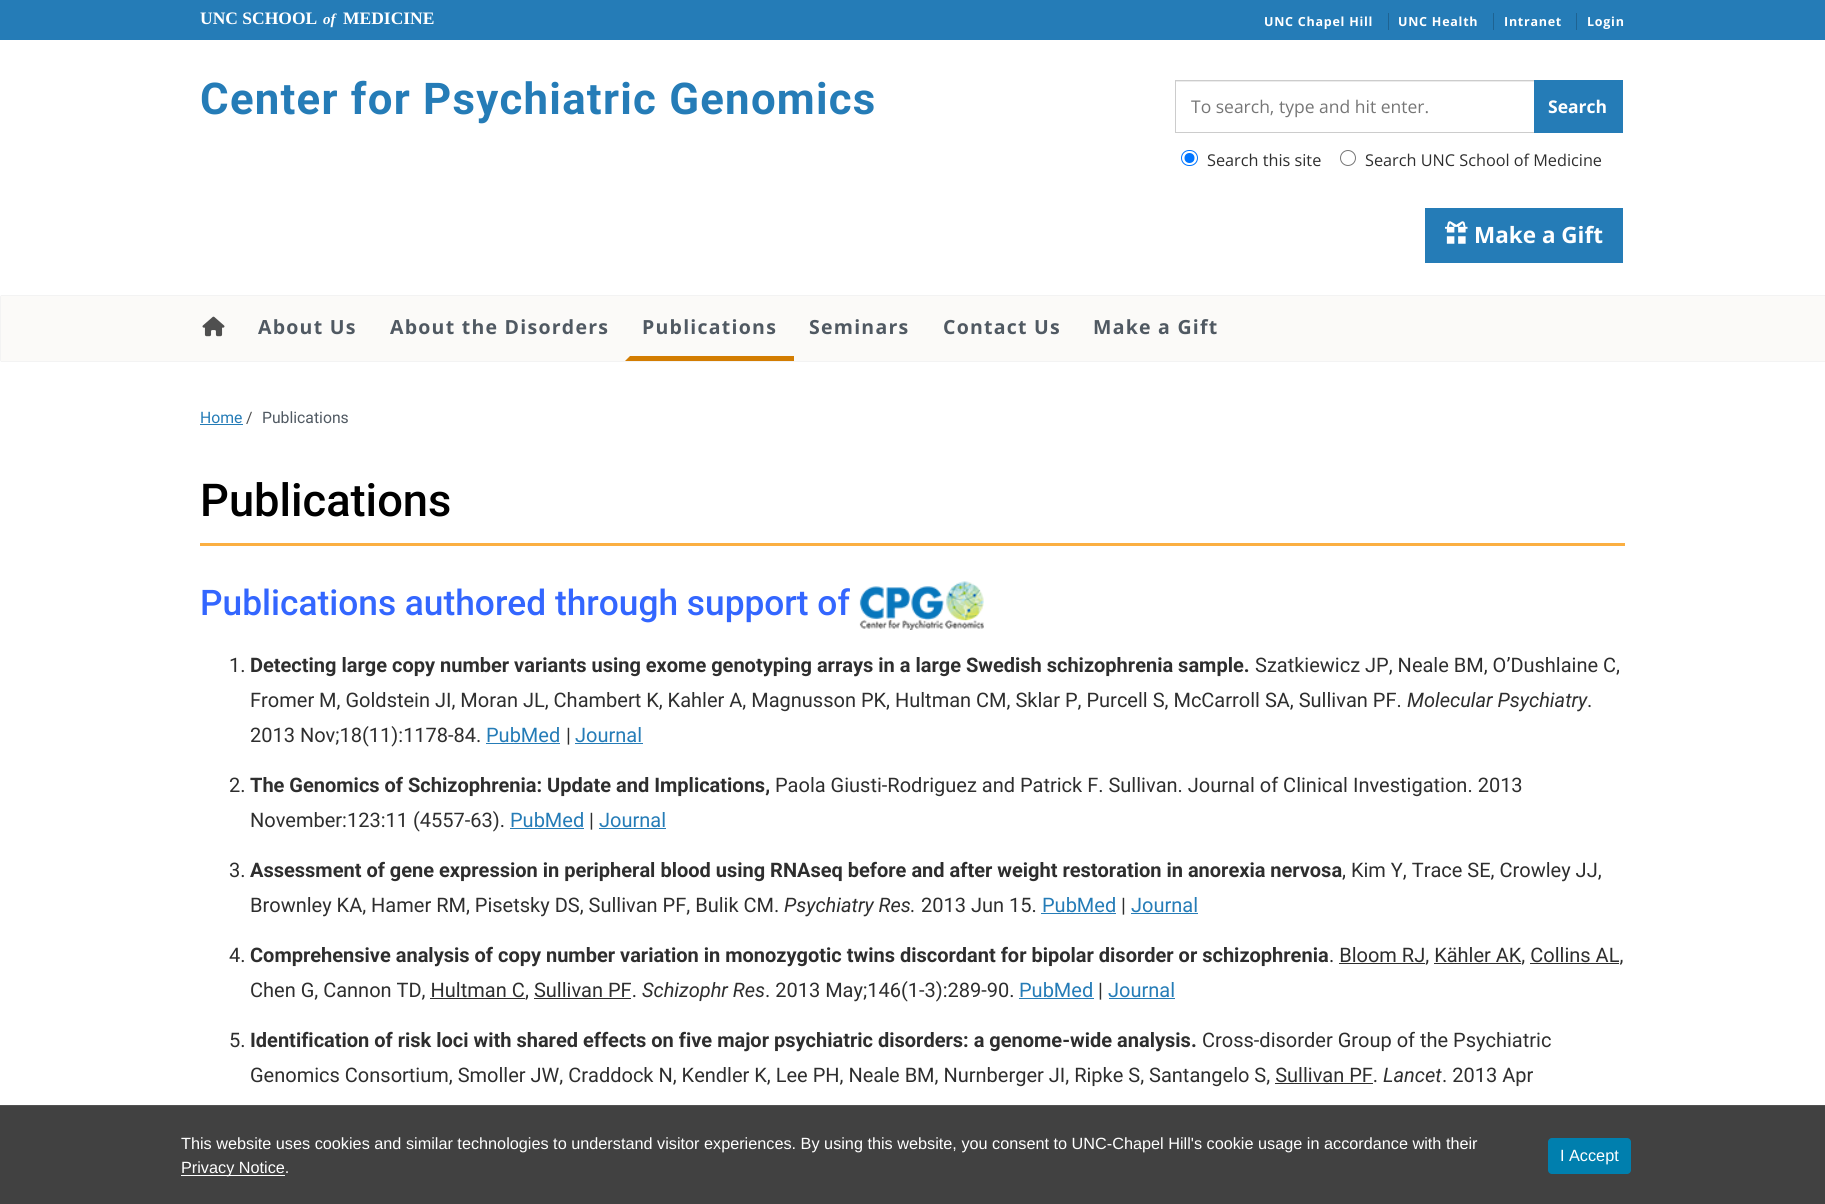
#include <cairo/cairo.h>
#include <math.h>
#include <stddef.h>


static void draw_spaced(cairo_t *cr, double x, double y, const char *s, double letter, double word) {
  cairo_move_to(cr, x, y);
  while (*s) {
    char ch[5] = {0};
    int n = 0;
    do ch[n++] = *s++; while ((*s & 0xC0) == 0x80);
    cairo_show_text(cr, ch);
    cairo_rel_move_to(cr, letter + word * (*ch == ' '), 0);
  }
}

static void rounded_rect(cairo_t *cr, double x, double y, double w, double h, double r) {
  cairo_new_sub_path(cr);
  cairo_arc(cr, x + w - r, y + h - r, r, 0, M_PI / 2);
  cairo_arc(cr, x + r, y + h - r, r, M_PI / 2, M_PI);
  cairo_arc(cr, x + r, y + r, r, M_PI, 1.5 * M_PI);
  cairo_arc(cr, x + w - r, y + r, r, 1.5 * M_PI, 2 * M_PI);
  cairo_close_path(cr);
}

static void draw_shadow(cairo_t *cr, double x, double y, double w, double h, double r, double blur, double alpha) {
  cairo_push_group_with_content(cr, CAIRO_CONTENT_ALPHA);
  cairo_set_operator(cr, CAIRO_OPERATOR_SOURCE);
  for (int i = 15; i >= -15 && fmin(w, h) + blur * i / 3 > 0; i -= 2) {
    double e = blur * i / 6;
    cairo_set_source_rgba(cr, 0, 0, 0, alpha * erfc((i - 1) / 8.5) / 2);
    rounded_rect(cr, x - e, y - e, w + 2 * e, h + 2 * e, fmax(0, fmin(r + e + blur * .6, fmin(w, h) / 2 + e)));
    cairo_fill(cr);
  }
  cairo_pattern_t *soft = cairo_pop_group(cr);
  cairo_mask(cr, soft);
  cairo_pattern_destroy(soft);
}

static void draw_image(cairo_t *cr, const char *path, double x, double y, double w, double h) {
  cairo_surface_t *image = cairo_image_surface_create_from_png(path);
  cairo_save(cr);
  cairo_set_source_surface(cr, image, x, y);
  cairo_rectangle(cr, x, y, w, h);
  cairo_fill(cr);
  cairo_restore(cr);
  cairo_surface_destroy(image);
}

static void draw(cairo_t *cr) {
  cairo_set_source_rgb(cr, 1, 1, 1);
  cairo_paint(cr);
  cairo_set_source_rgb(cr, 37 / 255.0, 124 / 255.0, 183 / 255.0);
  cairo_rectangle(cr, 0, 0, 1825, 40);
  cairo_fill(cr);
  cairo_set_source_rgb(cr, 30 / 255.0, 99 / 255.0, 146 / 255.0);
  cairo_rectangle(cr, 1388, 13, 1, 17);
  cairo_fill(cr);
  cairo_rectangle(cr, 1493, 13, 1, 17);
  cairo_fill(cr);
  cairo_rectangle(cr, 1576, 13, 1, 17);
  cairo_fill(cr);
  cairo_set_source_rgb(cr, 236 / 255.0, 236 / 255.0, 236 / 255.0);
  cairo_rectangle(cr, 1176, 81, 358, 1);
  cairo_fill(cr);
  cairo_rectangle(cr, 1175.5, 80.5, 359, 52);
  cairo_set_source_rgb(cr, 204 / 255.0, 204 / 255.0, 204 / 255.0);
  cairo_set_line_width(cr, 1);
  cairo_stroke(cr);
  cairo_set_source_rgb(cr, 37 / 255.0, 124 / 255.0, 183 / 255.0);
  cairo_rectangle(cr, 1534, 80, 89, 53);
  cairo_fill(cr);
  rounded_rect(cr, 1181.5, 150.5, 16, 15, 7.5);
  cairo_set_source_rgb(cr, 0, 117 / 255.0, 1);
  cairo_stroke(cr);
  cairo_arc(cr, 1189.5, 158, 5, 0, 2 * M_PI);
  cairo_fill(cr);
  cairo_arc(cr, 1348, 158, 7.5, 0, 2 * M_PI);
  cairo_set_source_rgb(cr, 118 / 255.0, 118 / 255.0, 118 / 255.0);
  cairo_stroke(cr);
  cairo_set_source_rgb(cr, 37 / 255.0, 124 / 255.0, 183 / 255.0);
  cairo_rectangle(cr, 1425, 208, 198, 55);
  cairo_fill(cr);
  draw_image(cr, "images/1.png", 1445, 221, 23, 23);
  cairo_set_source_rgb(cr, 189 / 255.0, 189 / 255.0, 189 / 255.0);
  draw_shadow(cr, 1, 296, 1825, 65, 0, 0.5, 0.75);
  cairo_set_source_rgb(cr, 251 / 255.0, 250 / 255.0, 248 / 255.0);
  cairo_rectangle(cr, 1, 296, 1824, 65);
  cairo_fill(cr);
  draw_image(cr, "images/2.png", 202, 316, 23, 21);
  cairo_set_source_rgb(cr, 211 / 255.0, 125 / 255.0, 2 / 255.0);
  cairo_new_path(cr);
  cairo_move_to(cr, 794, 361);
  cairo_line_to(cr, 625, 361);
  cairo_line_to(cr, 630, 356);
  cairo_line_to(cr, 794, 356);
  cairo_close_path(cr);
  cairo_fill(cr);
  cairo_set_source_rgb(cr, 37 / 255.0, 124 / 255.0, 183 / 255.0);
  cairo_rectangle(cr, 200, 424, 43, 1);
  cairo_fill(cr);
  cairo_set_source_rgb(cr, 251 / 255.0, 175 / 255.0, 65 / 255.0);
  cairo_rectangle(cr, 200, 543, 1425, 3);
  cairo_fill(cr);
  draw_image(cr, "images/3.png", 859, 581, 125, 49);
  cairo_set_source_rgb(cr, 37 / 255.0, 124 / 255.0, 183 / 255.0);
  cairo_rectangle(cr, 486, 743, 74, 1);
  cairo_fill(cr);
  cairo_rectangle(cr, 575, 743, 68, 1);
  cairo_fill(cr);
  cairo_rectangle(cr, 510, 828, 74, 1);
  cairo_fill(cr);
  cairo_rectangle(cr, 599, 828, 67, 1);
  cairo_fill(cr);
  cairo_rectangle(cr, 1041, 913, 75, 1);
  cairo_fill(cr);
  cairo_rectangle(cr, 1131, 913, 67, 1);
  cairo_fill(cr);
  cairo_set_source_rgb(cr, 46 / 255.0, 46 / 255.0, 46 / 255.0);
  cairo_rectangle(cr, 1339, 963, 86, 1);
  cairo_fill(cr);
  cairo_rectangle(cr, 1434, 963, 87, 1);
  cairo_fill(cr);
  cairo_rectangle(cr, 1530, 963, 89, 1);
  cairo_fill(cr);
  cairo_set_source_rgb(cr, 37 / 255.0, 124 / 255.0, 183 / 255.0);
  cairo_rectangle(cr, 1019, 998, 75, 1);
  cairo_fill(cr);
  cairo_rectangle(cr, 1109, 998, 66, 1);
  cairo_fill(cr);
  cairo_set_source_rgb(cr, 46 / 255.0, 46 / 255.0, 46 / 255.0);
  cairo_rectangle(cr, 430, 998, 95, 1);
  cairo_fill(cr);
  cairo_rectangle(cr, 534, 998, 97, 1);
  cairo_fill(cr);
  cairo_rectangle(cr, 1275, 1083, 98, 1);
  cairo_fill(cr);
  cairo_set_source_rgb(cr, 65 / 255.0, 65 / 255.0, 65 / 255.0);
  cairo_rectangle(cr, 0, 1106, 1825, 98);
  cairo_fill(cr);
  cairo_set_source_rgb(cr, 81 / 255.0, 81 / 255.0, 81 / 255.0);
  cairo_rectangle(cr, 0, 1105, 1825, 1);
  cairo_fill(cr);
  cairo_set_source_rgb(cr, 1, 1, 1);
  cairo_rectangle(cr, 181, 1175, 104, 1);
  cairo_fill(cr);
  cairo_set_source_rgb(cr, 0, 127 / 255.0, 174 / 255.0);
  rounded_rect(cr, 1548, 1138, 83, 36, 4);
  cairo_fill(cr);
  cairo_select_font_face(cr, "Liberation Serif", CAIRO_FONT_SLANT_NORMAL, CAIRO_FONT_WEIGHT_BOLD);
  cairo_set_font_size(cr, 17.5);
  cairo_set_source_rgb(cr, 1, 1, 1);
  cairo_move_to(cr, 200, 24);
  cairo_show_text(cr, "UNC SCHOOL");
  cairo_select_font_face(cr, "Liberation Serif", CAIRO_FONT_SLANT_ITALIC, CAIRO_FONT_WEIGHT_BOLD);
  cairo_set_font_size(cr, 15);
  cairo_move_to(cr, 323, 24);
  cairo_show_text(cr, "of");
  cairo_select_font_face(cr, "Liberation Serif", CAIRO_FONT_SLANT_NORMAL, CAIRO_FONT_WEIGHT_BOLD);
  cairo_set_font_size(cr, 17.5);
  cairo_move_to(cr, 343, 24);
  cairo_show_text(cr, "MEDICINE");
  cairo_select_font_face(cr, "Open Sans", CAIRO_FONT_SLANT_NORMAL, CAIRO_FONT_WEIGHT_BOLD);
  cairo_set_font_size(cr, 12.5);
  draw_spaced(cr, 1264, 26, "UNC Chapel Hill", 0.75, 0);
  draw_spaced(cr, 1398, 26, "UNC Health", 0.75, 0);
  draw_spaced(cr, 1504, 26, "Intranet", 0.75, 0);
  draw_spaced(cr, 1587, 26, "Login", 0.75, 0);
  cairo_select_font_face(cr, "Roboto", CAIRO_FONT_SLANT_NORMAL, CAIRO_FONT_WEIGHT_BOLD);
  cairo_set_font_size(cr, 43.75);
  cairo_set_source_rgb(cr, 37 / 255.0, 124 / 255.0, 183 / 255.0);
  draw_spaced(cr, 200, 114, "Center for Psychiatric Genomics", 1.25, 0);
  cairo_select_font_face(cr, "Open Sans", CAIRO_FONT_SLANT_NORMAL, CAIRO_FONT_WEIGHT_NORMAL);
  cairo_set_font_size(cr, 17.5);
  cairo_set_source_rgb(cr, 118 / 255.0, 118 / 255.0, 118 / 255.0);
  cairo_move_to(cr, 1191, 113);
  cairo_show_text(cr, "To search, type and hit enter.");
  cairo_select_font_face(cr, "Open Sans", CAIRO_FONT_SLANT_NORMAL, CAIRO_FONT_WEIGHT_BOLD);
  cairo_set_source_rgb(cr, 1, 1, 1);
  cairo_move_to(cr, 1548, 113);
  cairo_show_text(cr, "Search");
  cairo_select_font_face(cr, "Open Sans", CAIRO_FONT_SLANT_NORMAL, CAIRO_FONT_WEIGHT_NORMAL);
  cairo_set_font_size(cr, 16.25);
  cairo_set_source_rgb(cr, 46 / 255.0, 46 / 255.0, 46 / 255.0);
  cairo_move_to(cr, 1207, 166);
  cairo_show_text(cr, "Search this site");
  cairo_move_to(cr, 1365, 166);
  cairo_show_text(cr, "Search UNC School of Medicine");
  cairo_select_font_face(cr, "Open Sans", CAIRO_FONT_SLANT_NORMAL, CAIRO_FONT_WEIGHT_BOLD);
  cairo_set_font_size(cr, 22.5);
  cairo_set_source_rgb(cr, 1, 1, 1);
  cairo_move_to(cr, 1474, 243);
  cairo_show_text(cr, "Make a Gift");
  cairo_set_font_size(cr, 19.5);
  cairo_set_source_rgb(cr, 80 / 255.0, 89 / 255.0, 98 / 255.0);
  draw_spaced(cr, 258, 334, "About Us", 1.25, 0);
  draw_spaced(cr, 390, 334, "About the Disorders", 1.25, 0);
  draw_spaced(cr, 642, 334, "Publications", 1.25, 0);
  draw_spaced(cr, 809, 334, "Seminars", 1.25, 0);
  draw_spaced(cr, 943, 334, "Contact Us", 1.25, 0);
  draw_spaced(cr, 1093, 334, "Make a Gift", 1.25, 0);
  cairo_select_font_face(cr, "Roboto", CAIRO_FONT_SLANT_NORMAL, CAIRO_FONT_WEIGHT_NORMAL);
  cairo_set_font_size(cr, 15.75);
  cairo_set_source_rgb(cr, 37 / 255.0, 124 / 255.0, 183 / 255.0);
  cairo_move_to(cr, 200, 423);
  cairo_show_text(cr, "Home");
  cairo_set_source_rgb(cr, 79 / 255.0, 79 / 255.0, 79 / 255.0);
  cairo_move_to(cr, 246, 423);
  cairo_show_text(cr, "/");
  cairo_set_source_rgb(cr, 80 / 255.0, 89 / 255.0, 98 / 255.0);
  cairo_move_to(cr, 262, 423);
  cairo_show_text(cr, "Publications");
  cairo_select_font_face(cr, "Roboto Medium", CAIRO_FONT_SLANT_NORMAL, CAIRO_FONT_WEIGHT_NORMAL);
  cairo_set_font_size(cr, 45.25);
  cairo_set_source_rgb(cr, 0, 0, 0);
  cairo_move_to(cr, 200, 516);
  cairo_show_text(cr, "Publications");
  cairo_set_font_size(cr, 35.3);
  cairo_set_source_rgb(cr, 51 / 255.0, 102 / 255.0, 1);
  cairo_move_to(cr, 200, 615);
  cairo_show_text(cr, "Publications authored through support of");
  cairo_select_font_face(cr, "Roboto", CAIRO_FONT_SLANT_NORMAL, CAIRO_FONT_WEIGHT_NORMAL);
  cairo_set_font_size(cr, 20);
  cairo_set_source_rgb(cr, 46 / 255.0, 46 / 255.0, 46 / 255.0);
  cairo_move_to(cr, 229, 672);
  cairo_show_text(cr, "1.");
  cairo_select_font_face(cr, "Roboto", CAIRO_FONT_SLANT_NORMAL, CAIRO_FONT_WEIGHT_BOLD);
  cairo_move_to(cr, 250, 672);
  cairo_show_text(cr, "Detecting large copy number variants using exome genotyping arrays in a large Swedish schizophrenia sample.");
  cairo_select_font_face(cr, "Roboto", CAIRO_FONT_SLANT_NORMAL, CAIRO_FONT_WEIGHT_NORMAL);
  cairo_move_to(cr, 1255, 672);
  cairo_show_text(cr, "Szatkiewicz JP, Neale BM, O’Dushlaine C,");
  cairo_move_to(cr, 250, 707);
  cairo_show_text(cr, "Fromer M, Goldstein JI, Moran JL, Chambert K, Kahler A, Magnusson PK, Hultman CM, Sklar P, Purcell S, McCarroll SA, Sullivan PF.");
  cairo_select_font_face(cr, "Roboto", CAIRO_FONT_SLANT_ITALIC, CAIRO_FONT_WEIGHT_NORMAL);
  cairo_move_to(cr, 1407, 707);
  cairo_show_text(cr, "Molecular Psychiatry");
  cairo_select_font_face(cr, "Roboto", CAIRO_FONT_SLANT_NORMAL, CAIRO_FONT_WEIGHT_NORMAL);
  cairo_move_to(cr, 1587, 707);
  cairo_show_text(cr, ".");
  cairo_move_to(cr, 250, 742);
  cairo_show_text(cr, "2013 Nov;18(11):1178-84.");
  cairo_set_source_rgb(cr, 37 / 255.0, 124 / 255.0, 183 / 255.0);
  cairo_move_to(cr, 486, 742);
  cairo_show_text(cr, "PubMed");
  cairo_set_source_rgb(cr, 46 / 255.0, 46 / 255.0, 46 / 255.0);
  cairo_move_to(cr, 566, 742);
  cairo_show_text(cr, "|");
  cairo_set_source_rgb(cr, 37 / 255.0, 124 / 255.0, 183 / 255.0);
  cairo_move_to(cr, 575, 742);
  cairo_show_text(cr, "Journal");
  cairo_set_source_rgb(cr, 46 / 255.0, 46 / 255.0, 46 / 255.0);
  cairo_move_to(cr, 229, 792);
  cairo_show_text(cr, "2.");
  cairo_select_font_face(cr, "Roboto", CAIRO_FONT_SLANT_NORMAL, CAIRO_FONT_WEIGHT_BOLD);
  cairo_move_to(cr, 250, 792);
  cairo_show_text(cr, "The Genomics of Schizophrenia: Update and Implications,");
  cairo_select_font_face(cr, "Roboto", CAIRO_FONT_SLANT_NORMAL, CAIRO_FONT_WEIGHT_NORMAL);
  cairo_move_to(cr, 775, 792);
  cairo_show_text(cr, "Paola Giusti-Rodriguez and Patrick F. Sullivan. Journal of Clinical Investigation. 2013");
  cairo_move_to(cr, 250, 827);
  cairo_show_text(cr, "November:123:11 (4557-63).");
  cairo_set_source_rgb(cr, 37 / 255.0, 124 / 255.0, 183 / 255.0);
  cairo_move_to(cr, 510, 827);
  cairo_show_text(cr, "PubMed");
  cairo_set_source_rgb(cr, 46 / 255.0, 46 / 255.0, 46 / 255.0);
  cairo_move_to(cr, 589, 827);
  cairo_show_text(cr, "|");
  cairo_set_source_rgb(cr, 37 / 255.0, 124 / 255.0, 183 / 255.0);
  cairo_move_to(cr, 599, 827);
  cairo_show_text(cr, "Journal");
  cairo_set_source_rgb(cr, 46 / 255.0, 46 / 255.0, 46 / 255.0);
  cairo_move_to(cr, 229, 877);
  cairo_show_text(cr, "3.");
  cairo_select_font_face(cr, "Roboto", CAIRO_FONT_SLANT_NORMAL, CAIRO_FONT_WEIGHT_BOLD);
  cairo_move_to(cr, 250, 877);
  cairo_show_text(cr, "Assessment of gene expression in peripheral blood using RNAseq before and after weight restoration in anorexia nervosa");
  cairo_select_font_face(cr, "Roboto", CAIRO_FONT_SLANT_NORMAL, CAIRO_FONT_WEIGHT_NORMAL);
  cairo_move_to(cr, 1342, 877);
  cairo_show_text(cr, ", Kim Y, Trace SE, Crowley JJ,");
  cairo_move_to(cr, 250, 912);
  cairo_show_text(cr, "Brownley KA, Hamer RM, Pisetsky DS, Sullivan PF, Bulik CM.");
  cairo_select_font_face(cr, "Roboto", CAIRO_FONT_SLANT_ITALIC, CAIRO_FONT_WEIGHT_NORMAL);
  cairo_move_to(cr, 784, 912);
  cairo_show_text(cr, "Psychiatry Res.");
  cairo_select_font_face(cr, "Roboto", CAIRO_FONT_SLANT_NORMAL, CAIRO_FONT_WEIGHT_NORMAL);
  cairo_move_to(cr, 921, 912);
  cairo_show_text(cr, "2013 Jun 15.");
  cairo_set_source_rgb(cr, 37 / 255.0, 124 / 255.0, 183 / 255.0);
  cairo_move_to(cr, 1042, 912);
  cairo_show_text(cr, "PubMed");
  cairo_set_source_rgb(cr, 46 / 255.0, 46 / 255.0, 46 / 255.0);
  cairo_move_to(cr, 1121, 912);
  cairo_show_text(cr, "|");
  cairo_set_source_rgb(cr, 37 / 255.0, 124 / 255.0, 183 / 255.0);
  cairo_move_to(cr, 1131, 912);
  cairo_show_text(cr, "Journal");
  cairo_set_source_rgb(cr, 46 / 255.0, 46 / 255.0, 46 / 255.0);
  cairo_move_to(cr, 229, 962);
  cairo_show_text(cr, "4.");
  cairo_select_font_face(cr, "Roboto", CAIRO_FONT_SLANT_NORMAL, CAIRO_FONT_WEIGHT_BOLD);
  cairo_move_to(cr, 250, 962);
  cairo_show_text(cr, "Comprehensive analysis of copy number variation in monozygotic twins discordant for bipolar disorder or schizophrenia");
  cairo_select_font_face(cr, "Roboto", CAIRO_FONT_SLANT_NORMAL, CAIRO_FONT_WEIGHT_NORMAL);
  cairo_move_to(cr, 1329, 962);
  cairo_show_text(cr, ". Bloom RJ, Kähler AK, Collins AL,");
  cairo_move_to(cr, 250, 997);
  cairo_show_text(cr, "Chen G, Cannon TD, Hultman C");
  cairo_move_to(cr, 525, 997);
  cairo_show_text(cr, ", Sullivan PF.");
  cairo_select_font_face(cr, "Roboto", CAIRO_FONT_SLANT_ITALIC, CAIRO_FONT_WEIGHT_NORMAL);
  cairo_move_to(cr, 642, 997);
  cairo_show_text(cr, "Schizophr Res");
  cairo_select_font_face(cr, "Roboto", CAIRO_FONT_SLANT_NORMAL, CAIRO_FONT_WEIGHT_NORMAL);
  cairo_move_to(cr, 765, 997);
  cairo_show_text(cr, ". 2013 May;146(1-3):289-90.");
  cairo_set_source_rgb(cr, 37 / 255.0, 124 / 255.0, 183 / 255.0);
  cairo_move_to(cr, 1019, 997);
  cairo_show_text(cr, "PubMed");
  cairo_set_source_rgb(cr, 46 / 255.0, 46 / 255.0, 46 / 255.0);
  cairo_move_to(cr, 1098, 997);
  cairo_show_text(cr, "|");
  cairo_set_source_rgb(cr, 37 / 255.0, 124 / 255.0, 183 / 255.0);
  cairo_move_to(cr, 1108, 997);
  cairo_show_text(cr, "Journal");
  cairo_set_source_rgb(cr, 46 / 255.0, 46 / 255.0, 46 / 255.0);
  cairo_move_to(cr, 229, 1047);
  cairo_show_text(cr, "5.");
  cairo_select_font_face(cr, "Roboto", CAIRO_FONT_SLANT_NORMAL, CAIRO_FONT_WEIGHT_BOLD);
  cairo_move_to(cr, 250, 1047);
  cairo_show_text(cr, "Identification of risk loci with shared effects on five major psychiatric disorders: a genome-wide analysis.");
  cairo_select_font_face(cr, "Roboto", CAIRO_FONT_SLANT_NORMAL, CAIRO_FONT_WEIGHT_NORMAL);
  cairo_move_to(cr, 1202, 1047);
  cairo_show_text(cr, "Cross-disorder Group of the Psychiatric");
  cairo_move_to(cr, 250, 1082);
  cairo_show_text(cr, "Genomics Consortium, Smoller JW, Craddock N, Kendler K, Lee PH, Neale BM, Nurnberger JI, Ripke S, Santangelo S, Sullivan PF.");
  cairo_select_font_face(cr, "Roboto", CAIRO_FONT_SLANT_ITALIC, CAIRO_FONT_WEIGHT_NORMAL);
  cairo_move_to(cr, 1383, 1082);
  cairo_show_text(cr, "Lancet");
  cairo_select_font_face(cr, "Roboto", CAIRO_FONT_SLANT_NORMAL, CAIRO_FONT_WEIGHT_NORMAL);
  cairo_move_to(cr, 1442, 1082);
  cairo_show_text(cr, ". 2013 Apr");
  cairo_select_font_face(cr, "Liberation Sans", CAIRO_FONT_SLANT_NORMAL, CAIRO_FONT_WEIGHT_NORMAL);
  cairo_set_font_size(cr, 16.25);
  cairo_set_source_rgb(cr, 1, 1, 1);
  cairo_move_to(cr, 181, 1149);
  cairo_show_text(cr, "This website uses cookies and similar technologies to understand visitor experiences. By using this website, you consent to UNC-Chapel Hill's cookie usage in accordance with their");
  cairo_move_to(cr, 181, 1173);
  cairo_show_text(cr, "Privacy Notice.");
  cairo_move_to(cr, 1560, 1161);
  cairo_show_text(cr, "I Accept");
}

int main(void) {
  cairo_surface_t *surface = cairo_image_surface_create(CAIRO_FORMAT_RGB24, 1825, 1204);
  cairo_t *cr = cairo_create(surface);
  cairo_font_options_t *options = cairo_font_options_create();
  cairo_font_options_set_hint_metrics(options, CAIRO_HINT_METRICS_OFF);
  cairo_font_options_set_hint_style(options, CAIRO_HINT_STYLE_NONE);
  cairo_set_font_options(cr, options);
  cairo_set_miter_limit(cr, 4);
  draw(cr);
  cairo_surface_write_to_png(surface, "out.png");
  cairo_font_options_destroy(options);
  cairo_destroy(cr);
  cairo_surface_destroy(surface);
  return 0;
}
